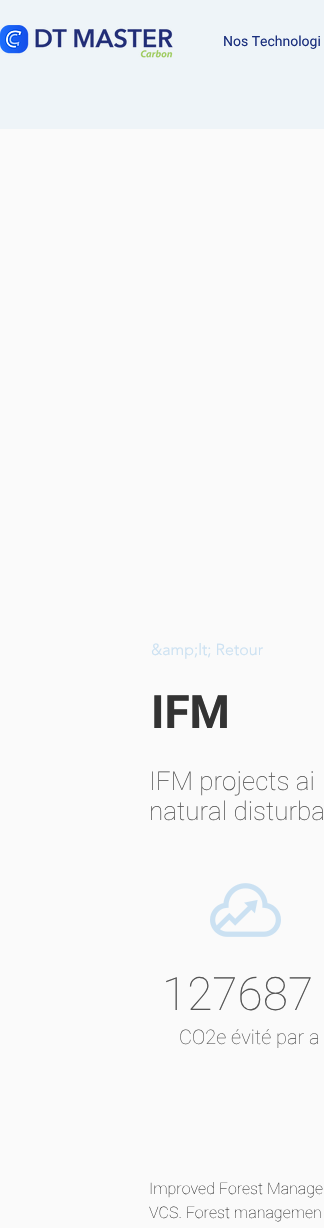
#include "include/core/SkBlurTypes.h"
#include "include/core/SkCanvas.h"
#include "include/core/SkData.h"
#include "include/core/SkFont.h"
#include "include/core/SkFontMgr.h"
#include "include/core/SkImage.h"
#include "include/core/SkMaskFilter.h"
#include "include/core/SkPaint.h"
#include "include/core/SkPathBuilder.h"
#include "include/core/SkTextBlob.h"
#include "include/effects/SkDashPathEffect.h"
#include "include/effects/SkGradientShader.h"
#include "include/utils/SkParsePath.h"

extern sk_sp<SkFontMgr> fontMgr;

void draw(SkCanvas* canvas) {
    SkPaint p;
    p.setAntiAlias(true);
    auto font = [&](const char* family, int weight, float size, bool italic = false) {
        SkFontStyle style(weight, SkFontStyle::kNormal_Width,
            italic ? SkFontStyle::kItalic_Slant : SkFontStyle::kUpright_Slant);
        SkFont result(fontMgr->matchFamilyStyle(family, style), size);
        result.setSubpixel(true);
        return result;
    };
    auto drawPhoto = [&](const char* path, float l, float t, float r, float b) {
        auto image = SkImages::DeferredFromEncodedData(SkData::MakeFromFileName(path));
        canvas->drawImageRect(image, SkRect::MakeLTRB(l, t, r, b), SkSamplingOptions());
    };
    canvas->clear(0xFFFAFAFA);
    p.setColor(0xFFEEF4F8);
    canvas->drawRect(SkRect::MakeLTRB(0, 0, 324, 129), p);
    drawPhoto("media/1.png", 0, 25, 173, 58);
    auto font1 = font("Roboto", 400, 14);
    p.setColor(0xFF192E7D);
    canvas->drawString("Nos Technologi", 223, 46, font1, p);
    auto font2 = font("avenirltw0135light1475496", 300, 16);
    p.setColor(0xFFCBE1F2);
    canvas->drawString("&amp;lt; Retour", 151, 655, font2, p);
    auto font3 = font("Roboto", 700, 46);
    p.setColor(0xFF333333);
    canvas->drawString("IFM", 151, 728, font3, p);
    auto font4 = font("Roboto", 100, 26);
    p.setColor(0xFF555555);
    canvas->drawString("IFM projects ai", 149, 790, font4, p);
    canvas->drawString("natural disturba", 149, 820, font4, p);
    drawPhoto("media/2.png", 210, 883, 281, 937);
    auto font5 = font("Roboto", 100, 46);
    canvas->drawString("127687", 162, 1010, font5, p);
    auto font6 = font("Roboto", 100, 20);
    canvas->drawString("CO2e évité par a", 179, 1044, font6, p);
    auto font7 = font("Roboto", 100, 16);
    p.setColor(0xFF333333);
    canvas->drawString("Improved Forest Manage", 149, 1194, font7, p);
    canvas->drawString("VCS. Forest managemen", 149, 1218, font7, p);
}
